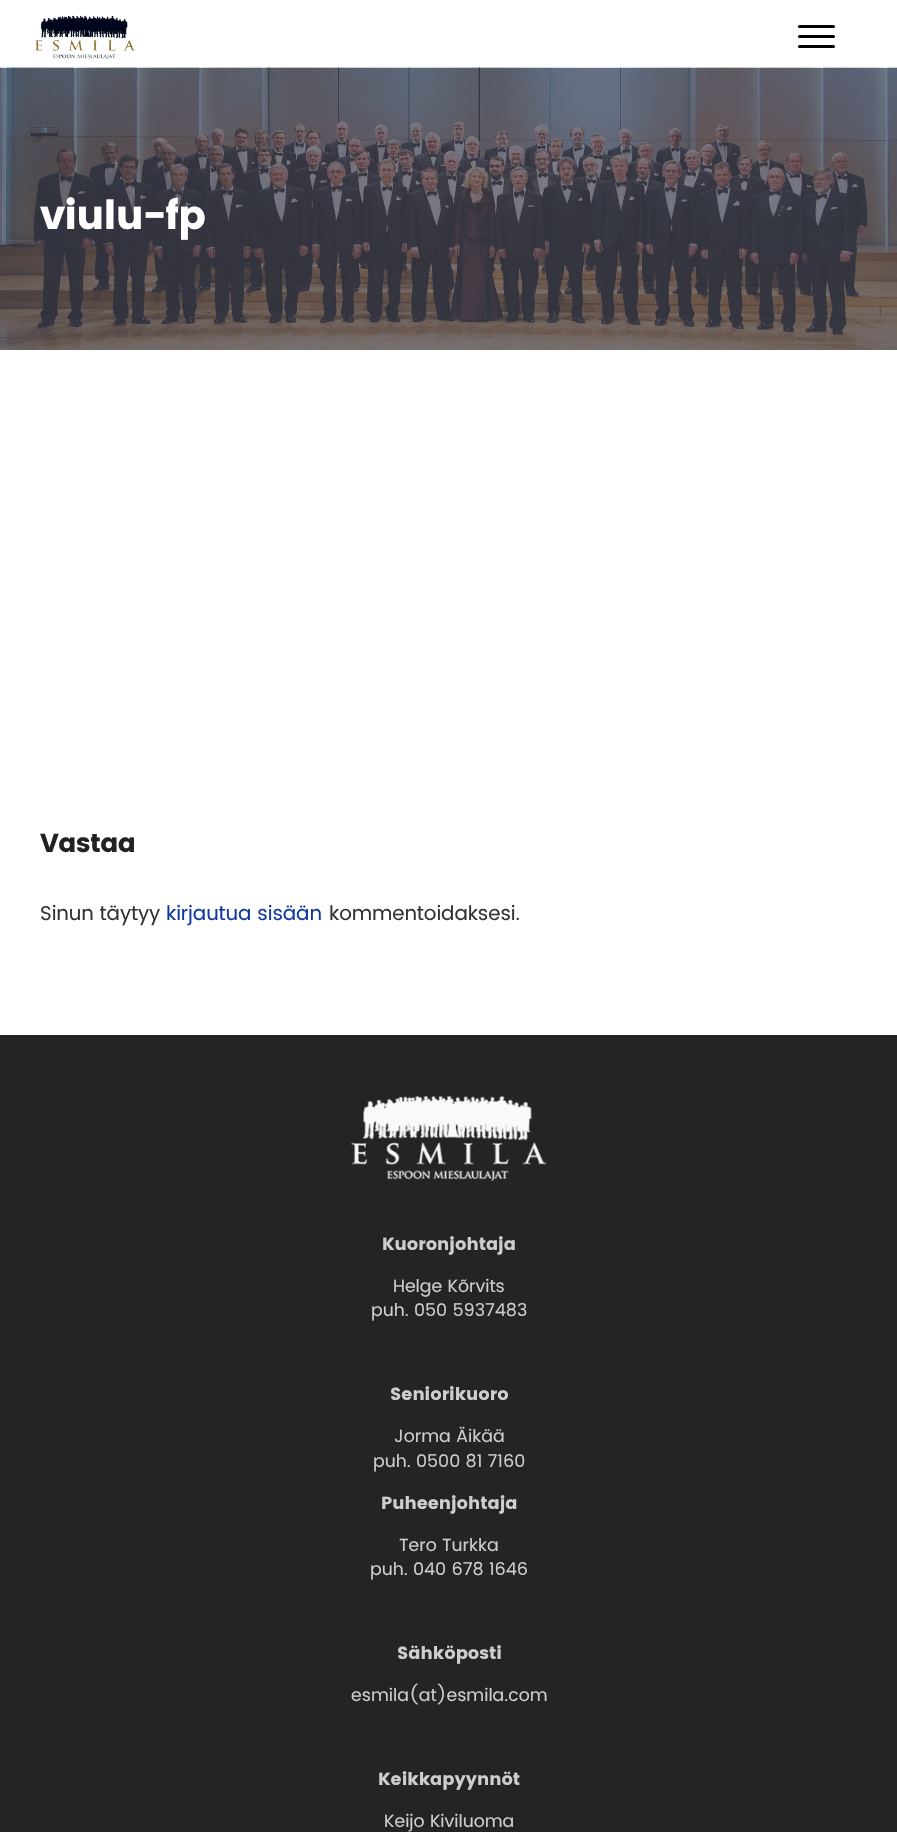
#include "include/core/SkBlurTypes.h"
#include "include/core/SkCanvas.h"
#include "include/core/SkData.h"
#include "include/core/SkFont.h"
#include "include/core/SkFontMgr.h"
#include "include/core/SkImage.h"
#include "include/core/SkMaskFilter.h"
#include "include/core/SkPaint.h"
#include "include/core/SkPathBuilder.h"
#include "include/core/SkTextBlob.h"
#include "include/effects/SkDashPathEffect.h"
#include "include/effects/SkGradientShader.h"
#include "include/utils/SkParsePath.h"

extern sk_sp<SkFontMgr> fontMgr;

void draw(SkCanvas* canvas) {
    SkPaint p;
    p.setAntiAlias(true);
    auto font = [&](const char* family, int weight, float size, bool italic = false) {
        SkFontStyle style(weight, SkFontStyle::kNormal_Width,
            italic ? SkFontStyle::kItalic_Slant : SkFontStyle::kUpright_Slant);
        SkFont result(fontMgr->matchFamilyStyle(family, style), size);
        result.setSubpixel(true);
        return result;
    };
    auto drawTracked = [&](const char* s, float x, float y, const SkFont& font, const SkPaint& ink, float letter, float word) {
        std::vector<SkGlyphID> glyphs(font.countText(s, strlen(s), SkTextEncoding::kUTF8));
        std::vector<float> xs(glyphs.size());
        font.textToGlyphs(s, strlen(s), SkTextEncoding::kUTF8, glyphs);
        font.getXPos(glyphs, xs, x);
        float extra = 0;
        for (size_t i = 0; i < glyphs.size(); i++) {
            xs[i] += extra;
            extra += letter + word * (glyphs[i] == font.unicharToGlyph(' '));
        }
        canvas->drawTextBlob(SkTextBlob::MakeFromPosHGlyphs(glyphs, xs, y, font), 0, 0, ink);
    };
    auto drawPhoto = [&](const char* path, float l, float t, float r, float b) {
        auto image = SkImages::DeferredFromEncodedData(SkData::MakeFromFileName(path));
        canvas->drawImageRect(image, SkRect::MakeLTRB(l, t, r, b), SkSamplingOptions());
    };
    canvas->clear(0xFFFFFFFF);
    drawPhoto("media/1.png", 34, 15, 135, 60);
    p.setColor(0xFF000000);
    canvas->drawRoundRect(SkRect::MakeLTRB(798, 35, 835, 38), 1.5f, 1.5f, p);
    canvas->drawRoundRect(SkRect::MakeLTRB(798, 25, 835, 28), 1.5f, 1.5f, p);
    canvas->drawRoundRect(SkRect::MakeLTRB(798, 45, 835, 48), 1.5f, 1.5f, p);
    drawPhoto("media/2.png", 0, 67, 897, 350);
    auto font1 = font("Poppins", 700, 40);
    p.setColor(0xFFFFFFFF);
    drawTracked("viulu-fp", 40, 229, font1, p, -0.75f, 0);
    auto font2 = font("Poppins", 700, 26);
    p.setColor(0xFF222222);
    drawTracked("Vastaa", 40, 852, font2, p, -0.5f, 0);
    auto font3 = font("Poppins", 400, 20);
    p.setColor(0xFF333333);
    drawTracked("Sinun täytyy", 40, 920, font3, p, -0.1f, 0);
    p.setColor(0xFF0F38A1);
    drawTracked("kirjautua sisään", 166, 920, font3, p, -0.1f, 0);
    p.setColor(0xFF333333);
    drawTracked("kommentoidaksesi.", 329, 920, font3, p, -0.1f, 0);
    p.setColor(0xFF242424);
    canvas->drawRect(SkRect::MakeLTRB(0, 1035, 897, 1832), p);
    drawPhoto("media/3.png", 351, 1096, 546, 1181);
    auto font4 = font("Poppins", 700, 17.5f);
    p.setColor(0xFFCECECE);
    canvas->drawString("Kuoronjohtaja", 382, 1250, font4, p);
    auto font5 = font("Poppins", 400, 17.5f);
    canvas->drawString("Helge Kõrvits", 393, 1292, font5, p);
    canvas->drawString("puh. 050 5937483", 371, 1316, font5, p);
    canvas->drawString("Seniorikuoro", 390, 1400, font4, p);
    canvas->drawString("Jorma Äikää", 394, 1442, font5, p);
    canvas->drawString("puh. 0500 81 7160", 373, 1467, font5, p);
    canvas->drawString("Puheenjohtaja", 381, 1509, font4, p);
    canvas->drawString("Tero Turkka", 399, 1551, font5, p);
    canvas->drawString("puh. 040 678 1646", 370, 1575, font5, p);
    canvas->drawString("Sähköposti", 397, 1659, font4, p);
    canvas->drawString("esmila(at)esmila.com", 351, 1701, font5, p);
    canvas->drawString("Keikkapyynnöt", 378, 1785, font4, p);
    canvas->drawString("Keijo Kiviluoma", 384, 1827, font5, p);
}
